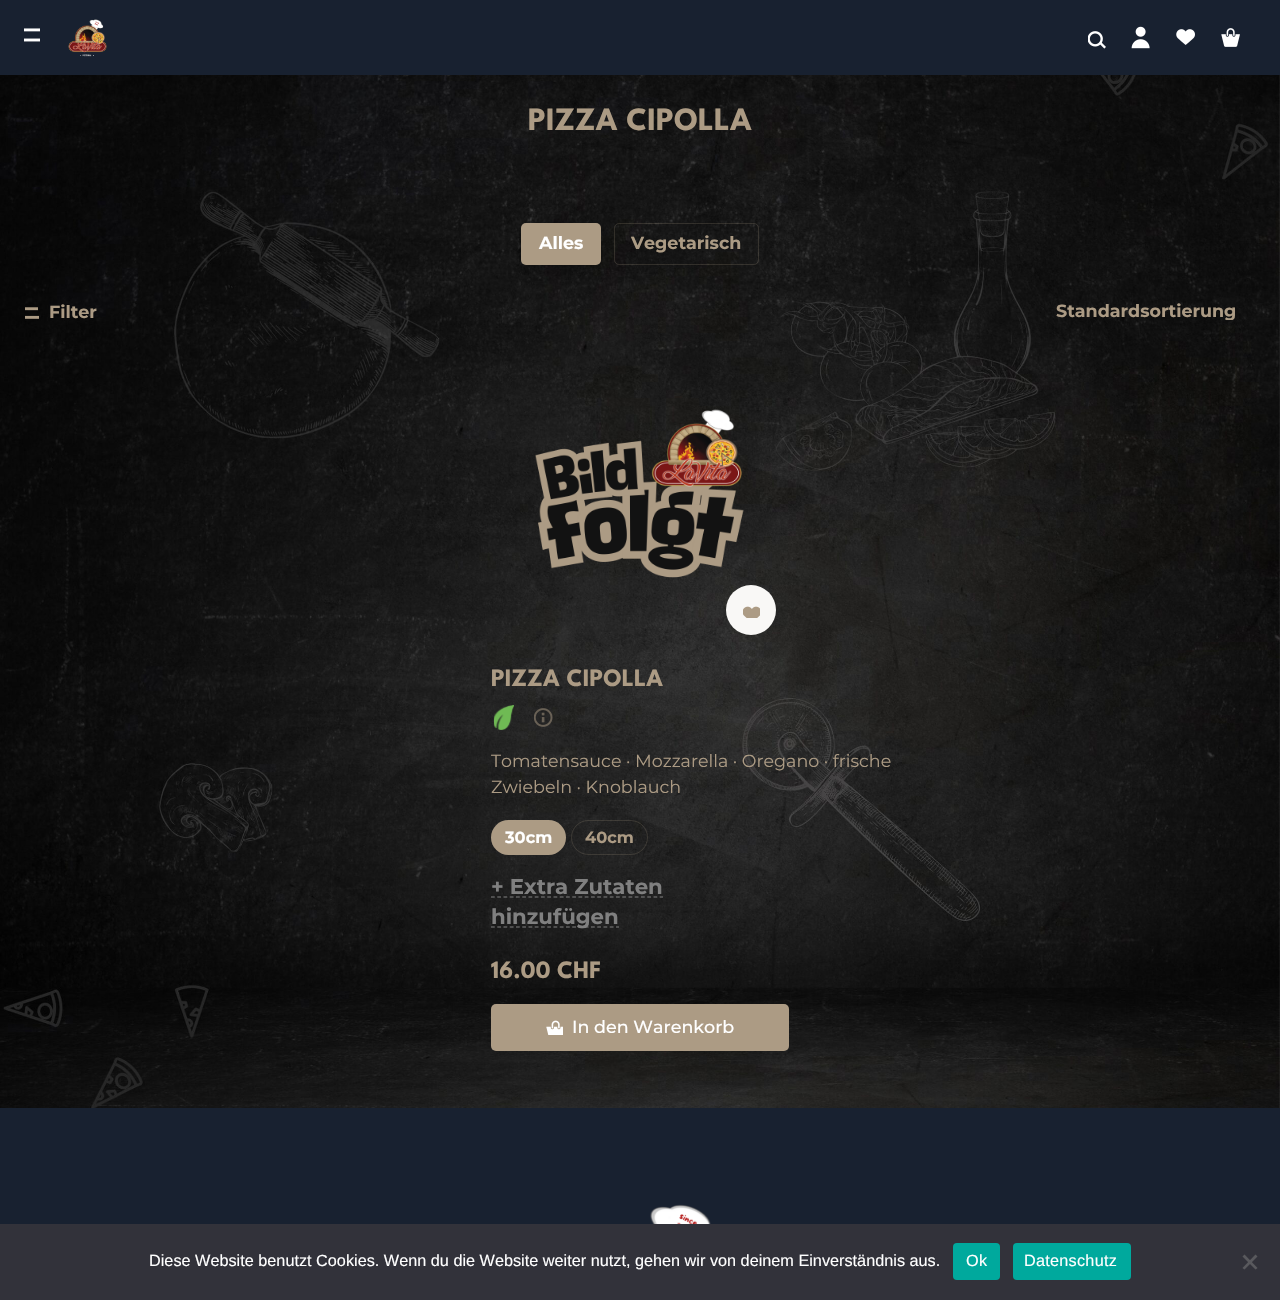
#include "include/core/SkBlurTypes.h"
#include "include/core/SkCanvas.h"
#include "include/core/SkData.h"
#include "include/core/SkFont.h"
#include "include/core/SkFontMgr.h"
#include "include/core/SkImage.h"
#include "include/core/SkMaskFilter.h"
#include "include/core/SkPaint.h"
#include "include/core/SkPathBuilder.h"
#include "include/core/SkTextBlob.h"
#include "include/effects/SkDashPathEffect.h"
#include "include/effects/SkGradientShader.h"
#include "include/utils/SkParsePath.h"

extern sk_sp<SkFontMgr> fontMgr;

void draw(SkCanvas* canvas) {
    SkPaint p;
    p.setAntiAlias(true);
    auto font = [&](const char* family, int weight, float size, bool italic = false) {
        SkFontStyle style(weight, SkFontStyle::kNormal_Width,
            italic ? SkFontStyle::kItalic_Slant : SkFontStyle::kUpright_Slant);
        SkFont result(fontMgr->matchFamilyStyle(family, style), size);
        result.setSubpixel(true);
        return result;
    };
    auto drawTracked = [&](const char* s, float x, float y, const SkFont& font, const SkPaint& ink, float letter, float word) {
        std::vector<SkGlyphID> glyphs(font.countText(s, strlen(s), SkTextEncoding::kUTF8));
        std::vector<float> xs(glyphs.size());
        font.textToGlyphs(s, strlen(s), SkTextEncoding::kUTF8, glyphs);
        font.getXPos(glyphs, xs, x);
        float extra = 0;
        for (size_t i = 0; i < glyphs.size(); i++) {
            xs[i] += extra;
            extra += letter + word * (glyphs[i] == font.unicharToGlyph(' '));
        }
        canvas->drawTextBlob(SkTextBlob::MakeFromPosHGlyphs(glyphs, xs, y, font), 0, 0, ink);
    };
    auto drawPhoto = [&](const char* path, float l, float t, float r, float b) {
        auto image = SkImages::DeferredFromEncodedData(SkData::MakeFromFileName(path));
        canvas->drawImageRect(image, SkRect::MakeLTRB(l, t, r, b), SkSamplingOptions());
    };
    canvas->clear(0xFFFFFFFF);
    drawPhoto("media/1.png", 0, 75, 1280, 1108);
    p.setColor(0xFF182130);
    canvas->drawRect(SkRect::MakeLTRB(0, 0, 1280, 75), p);
    drawPhoto("media/2.png", 24, 28, 40, 42);
    drawPhoto("media/3.png", 68, 19, 107, 57);
    drawPhoto("media/4.png", 1088, 31, 1106, 49);
    drawPhoto("media/5.png", 1131, 26, 1150, 49);
    drawPhoto("media/6.png", 1176, 29, 1195, 45);
    drawPhoto("media/7.png", 1221, 28, 1240, 47);
    auto font1 = font("League Spartan", 700, 32.5f);
    p.setColor(0xFFAC9B84);
    canvas->drawString("PIZZA CIPOLLA", 528, 130, font1, p);
    canvas->drawRoundRect(SkRect::MakeLTRB(521, 223, 601, 265), 5, 5, p);
    auto font2 = font("Montserrat", 700, 17.5f);
    p.setColor(0xFFFFFFFF);
    canvas->drawString("Alles", 539, 249, font2, p);
    p.setStyle(SkPaint::kStroke_Style);
    p.setStrokeWidth(1);
    p.setColor(0x33AC9B84);
    canvas->drawRoundRect(SkRect::MakeLTRB(614.5f, 223.5f, 758.5f, 264.5f), 4.5f, 4.5f, p);
    p.setStyle(SkPaint::kFill_Style);
    p.setColor(0xFFAC9B84);
    canvas->drawString("Vegetarisch", 631, 249, font2, p);
    drawPhoto("media/8.png", 25, 307, 39, 319);
    canvas->drawString("Filter", 49, 318, font2, p);
    canvas->save();
    canvas->clipRect(SkRect::MakeLTRB(840, 303, 1255, 320));
    canvas->drawString("Standardsortierung", 1056, 317, font2, p);
    canvas->restore();
    drawPhoto("media/9.png", 535, 409, 744, 578);
    p.setColor(0xFFFFFFFF);
    canvas->drawCircle(751, 610, 25, p);
    p.setColor(0x12AC9B84);
    canvas->drawCircle(751, 610, 25, p);
    drawPhoto("media/10.png", 743, 606, 760, 618);
    auto font3 = font("League Spartan", 700, 25);
    p.setColor(0xFFAC9B84);
    canvas->drawString("PIZZA CIPOLLA", 491, 686, font3, p);
    drawPhoto("media/11.png", 493, 705, 514, 730);
    drawPhoto("media/12.png", 534, 708, 553, 727);
    auto font4 = font("Montserrat", 400, 17.5f);
    canvas->drawString("Tomatensauce · Mozzarella · Oregano · frische", 491, 767, font4, p);
    canvas->drawString("Zwiebeln · Knoblauch", 491, 793, font4, p);
    canvas->drawRoundRect(SkRect::MakeLTRB(491, 820, 566, 855), 17.5f, 17.5f, p);
    auto font5 = font("Montserrat", 700, 16.25f);
    p.setColor(0xFFFFFFFF);
    canvas->drawString("30cm", 505, 843, font5, p);
    p.setStyle(SkPaint::kStroke_Style);
    p.setColor(0x33AC9B84);
    canvas->drawRoundRect(SkRect::MakeLTRB(571.5f, 820.5f, 647.5f, 854.5f), 17, 17, p);
    p.setStyle(SkPaint::kFill_Style);
    p.setColor(0xFFAC9B84);
    canvas->drawString("40cm", 585, 843, font5, p);
    auto font6 = font("Montserrat", 700, 21.25f);
    p.setColor(0xFF808080);
    canvas->drawString("+ Extra Zutaten", 491, 894, font6, p);
    p.setStyle(SkPaint::kStroke_Style);
    p.setStrokeWidth(1.2f);
    p.setPathEffect(SkDashPathEffect::Make({{3.75f, 2.5f}}, 0));
    canvas->drawPath(SkPathBuilder().moveTo(491, 897).lineTo(663, 897).detach(), p);
    p.setPathEffect(nullptr);
    p.setPathEffect(SkDashPathEffect::Make({{3.75f, 2.5f}}, 0));
    canvas->drawPath(SkPathBuilder().moveTo(491, 927).lineTo(619, 927).detach(), p);
    p.setPathEffect(nullptr);
    p.setStyle(SkPaint::kFill_Style);
    canvas->drawString("hinzufügen", 491, 924, font6, p);
    p.setColor(0xFFAC9B84);
    canvas->drawString("16.00 CHF", 491, 978, font3, p);
    canvas->drawRoundRect(SkRect::MakeLTRB(491, 1004, 789, 1051), 5, 5, p);
    drawPhoto("media/13.png", 546, 1020, 563, 1035);
    auto font7 = font("Montserrat", 500, 17.5f);
    p.setColor(0xFFFFFFFF);
    canvas->drawString("In den Warenkorb", 572, 1033, font7, p);
    p.setColor(0xFF182130);
    canvas->drawRect(SkRect::MakeLTRB(0, 1108, 1280, 1224), p);
    drawPhoto("media/14.png", 650, 1204, 711, 1224);
    p.setColor(0xFF32323A);
    canvas->drawRect(SkRect::MakeLTRB(0, 1224, 1280, 1300), p);
    auto font8 = font("Liberation Sans", 400, 16.25f);
    p.setColor(0xFFFFFFFF);
    canvas->drawString("Diese Website benutzt Cookies. Wenn du die Website weiter nutzt, gehen wir von deinem Einverständnis aus.", 149, 1266, font8, p);
    p.setColor(0xFF00A99D);
    canvas->drawRoundRect(SkRect::MakeLTRB(953, 1243, 1000, 1280), 4, 4, p);
    p.setColor(0xFFFFFFFF);
    drawTracked("Ok", 966, 1266, font8, p, 0.25f, 0);
    p.setColor(0xFF00A99D);
    canvas->drawRoundRect(SkRect::MakeLTRB(1013, 1243, 1131, 1280), 4, 4, p);
    p.setColor(0xFFFFFFFF);
    drawTracked("Datenschutz", 1024, 1266, font8, p, 0.25f, 0);
    p.setColor(0xFF59595D);
    canvas->drawPath(SkPathBuilder().moveTo(1255.5f, 1254.5f).lineTo(1257.5f, 1256.5f).lineTo(1244.5f, 1269.5f).lineTo(1242.5f, 1268).close().detach(), p);
    canvas->drawPath(SkPathBuilder().moveTo(1242.5f, 1256.5f).lineTo(1244.5f, 1254.5f).lineTo(1257.5f, 1268).lineTo(1255.5f, 1269.5f).close().detach(), p);
}
